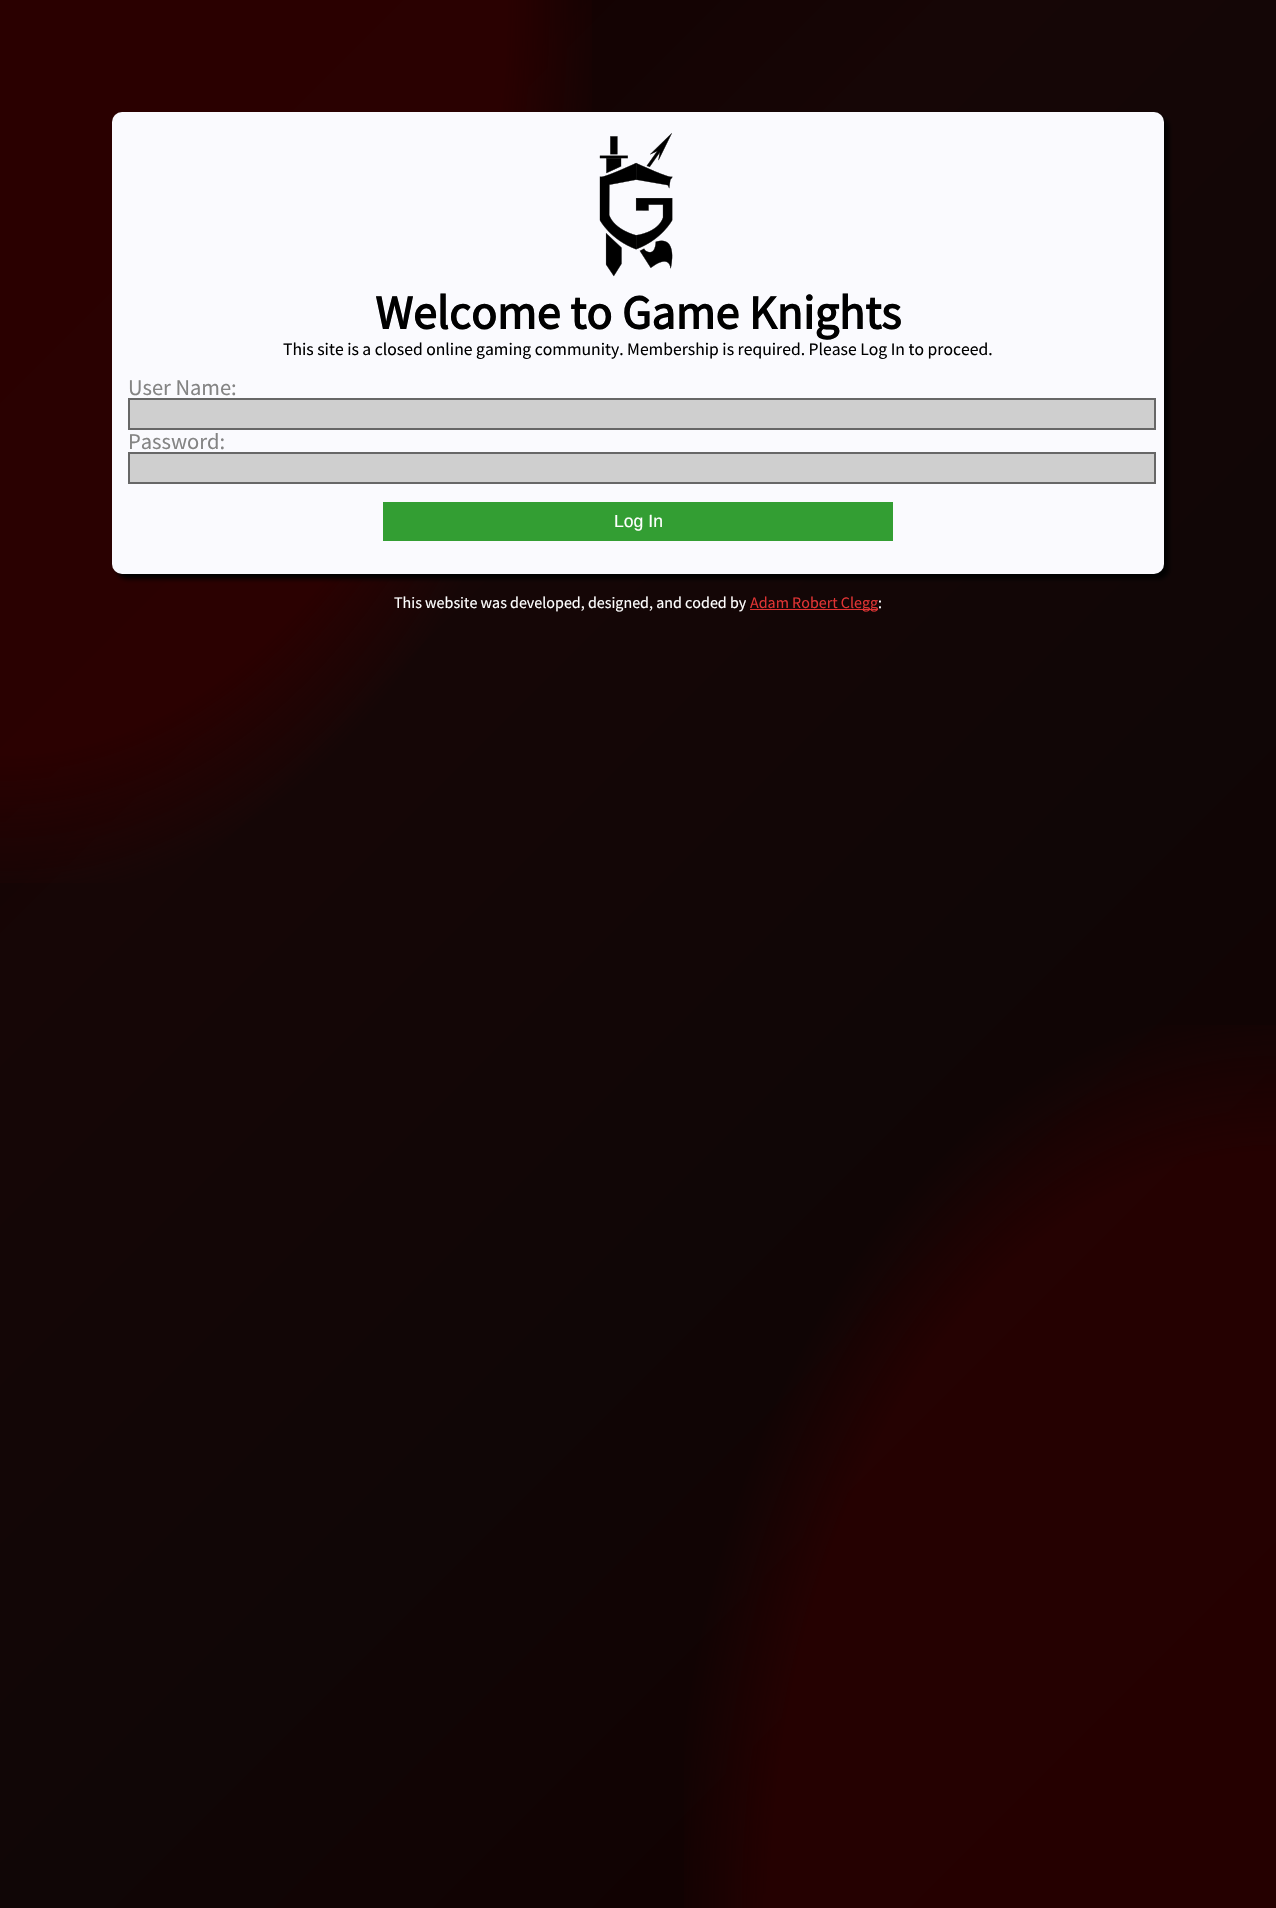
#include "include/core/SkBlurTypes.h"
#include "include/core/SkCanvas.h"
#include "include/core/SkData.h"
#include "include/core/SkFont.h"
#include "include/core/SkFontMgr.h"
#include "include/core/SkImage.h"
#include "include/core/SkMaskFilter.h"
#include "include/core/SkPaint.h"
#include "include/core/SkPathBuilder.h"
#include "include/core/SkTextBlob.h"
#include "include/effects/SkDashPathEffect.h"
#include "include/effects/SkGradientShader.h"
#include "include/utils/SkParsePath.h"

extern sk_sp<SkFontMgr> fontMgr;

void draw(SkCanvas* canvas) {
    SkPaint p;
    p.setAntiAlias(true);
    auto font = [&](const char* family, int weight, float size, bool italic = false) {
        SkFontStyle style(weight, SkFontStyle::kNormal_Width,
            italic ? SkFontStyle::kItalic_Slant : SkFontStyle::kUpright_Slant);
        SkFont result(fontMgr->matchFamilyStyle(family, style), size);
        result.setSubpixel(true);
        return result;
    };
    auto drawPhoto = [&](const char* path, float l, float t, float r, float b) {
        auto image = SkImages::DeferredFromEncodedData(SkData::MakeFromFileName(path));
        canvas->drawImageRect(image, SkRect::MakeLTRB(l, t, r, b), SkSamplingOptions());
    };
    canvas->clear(0xFFFFFFFF);
    {
        const SkColor colors[] = {0xFF120000, 0xFF100606, 0xFF160606, 0xFF120000};
        const float stops[] = {0.09f, 0.39f, 0.69f, 0.89f};
        const SkPoint ends[] = {{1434, 1750}, {-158, 158}};
        p.setShader(SkGradientShader::MakeLinear(ends, colors, stops, 4, SkTileMode::kClamp));
        p.setAlpha(255);
    }
    canvas->drawRect(SkRect::MakeLTRB(0, 0, 1276, 1908), p);
    {
        const SkColor colors[] = {0xB32C0000, 0xB32C0000, 0x002C0000};
        const float stops[] = {0.25f, 0.56f, 0.67f};
        SkMatrix m = SkMatrix::Translate(1276, 1908).preScale(902, 1349);
        p.setShader(SkGradientShader::MakeRadial({0, 0}, 1, colors, stops, 3, SkTileMode::kClamp, 0, &m));
        p.setAlpha(255);
    }
    canvas->drawRect(SkRect::MakeLTRB(684, 1025, 1276, 1908), p);
    {
        const SkColor colors[] = {0xE62C0000, 0xE62C0000, 0x002C0000};
        const float stops[] = {0.25f, 0.56f, 0.67f};
        SkMatrix m = SkMatrix::Translate(0, 0).preScale(902, 1349);
        p.setShader(SkGradientShader::MakeRadial({0, 0}, 1, colors, stops, 3, SkTileMode::kClamp, 0, &m));
        p.setAlpha(255);
    }
    canvas->drawRect(SkRect::MakeLTRB(0, 0, 592, 883), p);
    p.setShader(nullptr);
    p.setColor(0xFF000000);
    p.setMaskFilter(SkMaskFilter::MakeBlur(kNormal_SkBlurStyle, 2.5f));
    canvas->drawRoundRect(SkRect::MakeLTRB(117, 117, 1169, 579), 10, 10, p);
    p.setMaskFilter(nullptr);
    p.setColor(0xFFFAFAFE);
    canvas->drawRoundRect(SkRect::MakeLTRB(112, 112, 1164, 574), 10, 10, p);
    drawPhoto("media/1.png", 599, 133, 673, 277);
    auto font1 = font("Source Sans Pro", 700, 48);
    p.setColor(0xFF000000);
    canvas->drawString("Welcome to Game Knights", 375, 329, font1, p);
    auto font2 = font("Source Sans Pro", 400, 17.6f);
    canvas->drawString("This site is a closed online gaming community. Membership is required. Please Log In to proceed.", 283, 355, font2, p);
    auto font3 = font("Source Sans Pro", 400, 22.5f);
    p.setColor(0xFF848484);
    canvas->drawString("User Name:", 128, 395, font3, p);
    p.setColor(0xFFCFCFCF);
    canvas->drawRect(SkRect::MakeLTRB(129, 399, 1155, 429), p);
    p.setStyle(SkPaint::kStroke_Style);
    p.setStrokeWidth(2);
    p.setColor(0xFF676767);
    canvas->drawRect(SkRect::MakeLTRB(129, 399, 1155, 429), p);
    p.setStyle(SkPaint::kFill_Style);
    p.setColor(0xFF848484);
    canvas->drawString("Password:", 128, 449, font3, p);
    p.setColor(0xFFCFCFCF);
    canvas->drawRect(SkRect::MakeLTRB(129, 453, 1155, 483), p);
    p.setStyle(SkPaint::kStroke_Style);
    p.setColor(0xFF676767);
    canvas->drawRect(SkRect::MakeLTRB(129, 453, 1155, 483), p);
    p.setStyle(SkPaint::kFill_Style);
    p.setColor(0xFF339E33);
    canvas->drawRect(SkRect::MakeLTRB(383, 502, 893, 541), p);
    auto font4 = font("Liberation Sans", 400, 17.6f);
    p.setColor(0xFFFFFFFF);
    canvas->drawString("Log In", 614, 527, font4, p);
    auto font5 = font("Source Sans Pro", 400, 16);
    canvas->drawString("This website was developed, designed, and coded by", 394, 608, font5, p);
    p.setColor(0xFFDF3333);
    canvas->drawRect(SkRect::MakeLTRB(750, 609, 878, 610), p);
    canvas->drawString("Adam Robert Clegg", 750, 608, font5, p);
    p.setColor(0xFFFFFFFF);
    canvas->drawString(":", 878, 608, font5, p);
}
